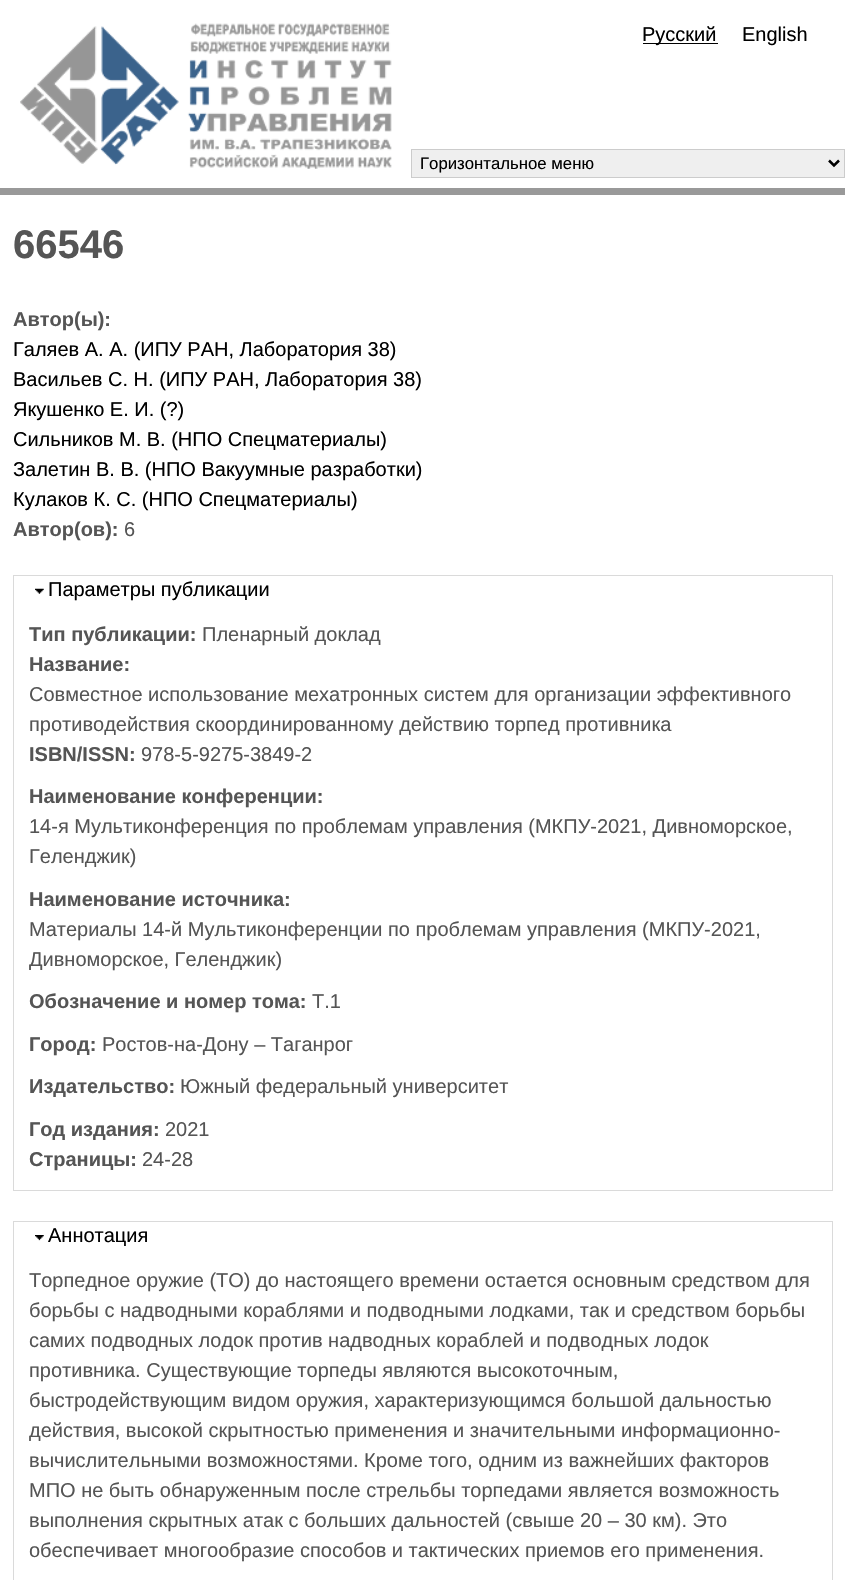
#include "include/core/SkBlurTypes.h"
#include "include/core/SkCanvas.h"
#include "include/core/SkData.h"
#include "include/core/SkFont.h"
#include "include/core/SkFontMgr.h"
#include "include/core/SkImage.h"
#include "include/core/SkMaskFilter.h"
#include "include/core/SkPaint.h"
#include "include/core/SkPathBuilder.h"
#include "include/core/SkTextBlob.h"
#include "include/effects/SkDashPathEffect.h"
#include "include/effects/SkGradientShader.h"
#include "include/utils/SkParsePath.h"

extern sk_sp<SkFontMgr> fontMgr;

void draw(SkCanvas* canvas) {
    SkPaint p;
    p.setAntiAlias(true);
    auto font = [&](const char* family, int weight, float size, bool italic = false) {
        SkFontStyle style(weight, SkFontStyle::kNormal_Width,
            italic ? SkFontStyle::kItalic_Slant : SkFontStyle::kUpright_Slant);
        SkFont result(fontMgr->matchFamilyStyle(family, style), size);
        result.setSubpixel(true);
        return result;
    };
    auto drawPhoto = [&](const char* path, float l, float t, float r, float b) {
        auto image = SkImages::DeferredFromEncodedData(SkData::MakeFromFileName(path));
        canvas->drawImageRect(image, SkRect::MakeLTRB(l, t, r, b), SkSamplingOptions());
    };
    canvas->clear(0xFFFFFFFF);
    drawPhoto("media/1.png", 20, 23, 392, 169);
    p.setColor(0xFF000000);
    canvas->drawRect(SkRect::MakeLTRB(643, 43, 718, 44), p);
    auto font1 = font("Liberation Sans", 400, 20);
    canvas->drawString("Русский", 642, 41, font1, p);
    canvas->drawString("English", 742, 41, font1, p);
    p.setColor(0xFF999999);
    canvas->drawRect(SkRect::MakeLTRB(0, 188, 845, 195), p);
    p.setColor(0xFFEFEFEF);
    canvas->drawRect(SkRect::MakeLTRB(411.5f, 149.5f, 844.5f, 177.5f), p);
    p.setStyle(SkPaint::kStroke_Style);
    p.setStrokeWidth(1);
    p.setColor(0xFFCCCCCC);
    canvas->drawRect(SkRect::MakeLTRB(411.5f, 149.5f, 844.5f, 177.5f), p);
    p.setStrokeWidth(2.5f);
    p.setColor(0xFF000000);
    canvas->drawPath(SkPathBuilder().moveTo(829, 160.5f).lineTo(834, 165.5f).lineTo(839, 160.5f).detach(), p);
    auto font2 = font("Liberation Sans", 400, 16.75f);
    p.setStyle(SkPaint::kFill_Style);
    canvas->drawString("Горизонтальное меню", 420, 169, font2, p);
    auto font3 = font("Liberation Sans", 700, 40);
    p.setColor(0xFF555555);
    canvas->drawString("66546", 13, 258, font3, p);
    auto font4 = font("Liberation Sans", 700, 20);
    canvas->drawString("Автор(ы):", 13, 326, font4, p);
    p.setColor(0xFF000000);
    {
        const struct { const char* s; float x, y; } items[] = {
            {"Галяев А. А. (ИПУ РАН, Лаборатория 38)", 13, 356},
            {"Васильев С. Н. (ИПУ РАН, Лаборатория 38)", 13, 386},
            {"Якушенко Е. И. (?)", 13, 416},
            {"Сильников М. В. (НПО Спецматериалы)", 13, 446},
            {"Залетин В. В. (НПО Вакуумные разработки)", 13, 476},
            {"Кулаков К. С. (НПО Спецматериалы)", 13, 506},
        };
        for (auto [s, x, y] : items) {
            canvas->drawString(s, x, y, font1, p);
        }
    }
    p.setColor(0xFF555555);
    canvas->drawString("Автор(ов):", 13, 536, font4, p);
    canvas->drawString("6", 124, 536, font1, p);
    p.setStyle(SkPaint::kStroke_Style);
    p.setStrokeWidth(1);
    p.setColor(0xFFDADADA);
    canvas->drawRect(SkRect::MakeLTRB(13.5f, 575.5f, 832.5f, 1190.5f), p);
    drawPhoto("media/2.png", 35, 588, 44, 594);
    p.setStyle(SkPaint::kFill_Style);
    p.setColor(0xFF000000);
    canvas->drawString("Параметры публикации", 48, 596, font1, p);
    p.setColor(0xFF555555);
    canvas->drawString("Тип публикации:", 29, 641, font4, p);
    canvas->drawString("Пленарный доклад", 202, 641, font1, p);
    canvas->drawString("Название:", 29, 671, font4, p);
    canvas->drawString("Совместное использование мехатронных систем для организации эффективного", 29, 701, font1, p);
    canvas->drawString("противодействия скоординированному действию торпед противника", 29, 731, font1, p);
    canvas->drawString("ISBN/ISSN:", 29, 761, font4, p);
    canvas->drawString("978-5-9275-3849-2", 141, 761, font1, p);
    canvas->drawString("Наименование конференции:", 29, 803, font4, p);
    canvas->drawString("14-я Мультиконференция по проблемам управления (МКПУ-2021, Дивноморское,", 29, 833, font1, p);
    canvas->drawString("Геленджик)", 29, 863, font1, p);
    canvas->drawString("Наименование источника:", 29, 906, font4, p);
    canvas->drawString("Материалы 14-й Мультиконференции по проблемам управления (МКПУ-2021,", 29, 936, font1, p);
    canvas->drawString("Дивноморское, Геленджик)", 29, 966, font1, p);
    canvas->drawString("Обозначение и номер тома:", 29, 1008, font4, p);
    canvas->drawString("Т.1", 312, 1008, font1, p);
    canvas->drawString("Город:", 29, 1051, font4, p);
    canvas->drawString("Ростов-на-Дону – Таганрог", 102, 1051, font1, p);
    canvas->drawString("Издательство:", 29, 1093, font4, p);
    canvas->drawString("Южный федеральный университет", 180, 1093, font1, p);
    canvas->drawString("Год издания:", 29, 1136, font4, p);
    canvas->drawString("2021", 165, 1136, font1, p);
    canvas->drawString("Страницы:", 29, 1166, font4, p);
    canvas->drawString("24-28", 142, 1166, font1, p);
    p.setStyle(SkPaint::kStroke_Style);
    p.setColor(0xFFDADADA);
    canvas->drawRect(SkRect::MakeLTRB(13.5f, 1221.5f, 832.5f, 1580.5f), p);
    drawPhoto("media/3.png", 35, 1235, 44, 1241);
    p.setStyle(SkPaint::kFill_Style);
    p.setColor(0xFF000000);
    canvas->drawString("Аннотация", 48, 1242, font1, p);
    p.setColor(0xFF555555);
    {
        const struct { const char* s; float x, y; } items[] = {
            {"Торпедное оружие (ТО) до настоящего времени остается основным средством для", 29, 1287},
            {"борьбы с надводными кораблями и подводными лодками, так и средством борьбы", 29, 1317},
            {"самих подводных лодок против надводных кораблей и подводных лодок", 29, 1347},
            {"противника. Существующие торпеды являются высокоточным,", 29, 1377},
            {"быстродействующим видом оружия, характеризующимся большой дальностью", 29, 1407},
            {"действия, высокой скрытностью применения и значительными информационно-", 29, 1437},
            {"вычислительными возможностями. Кроме того, одним из важнейших факторов", 29, 1467},
            {"МПО не быть обнаруженным после стрельбы торпедами является возможность", 29, 1497},
            {"выполнения скрытных атак с больших дальностей (свыше 20 – 30 км). Это", 29, 1527},
            {"обеспечивает многообразие способов и тактических приемов его применения.", 29, 1557},
        };
        for (auto [s, x, y] : items) {
            canvas->drawString(s, x, y, font1, p);
        }
    }
}
